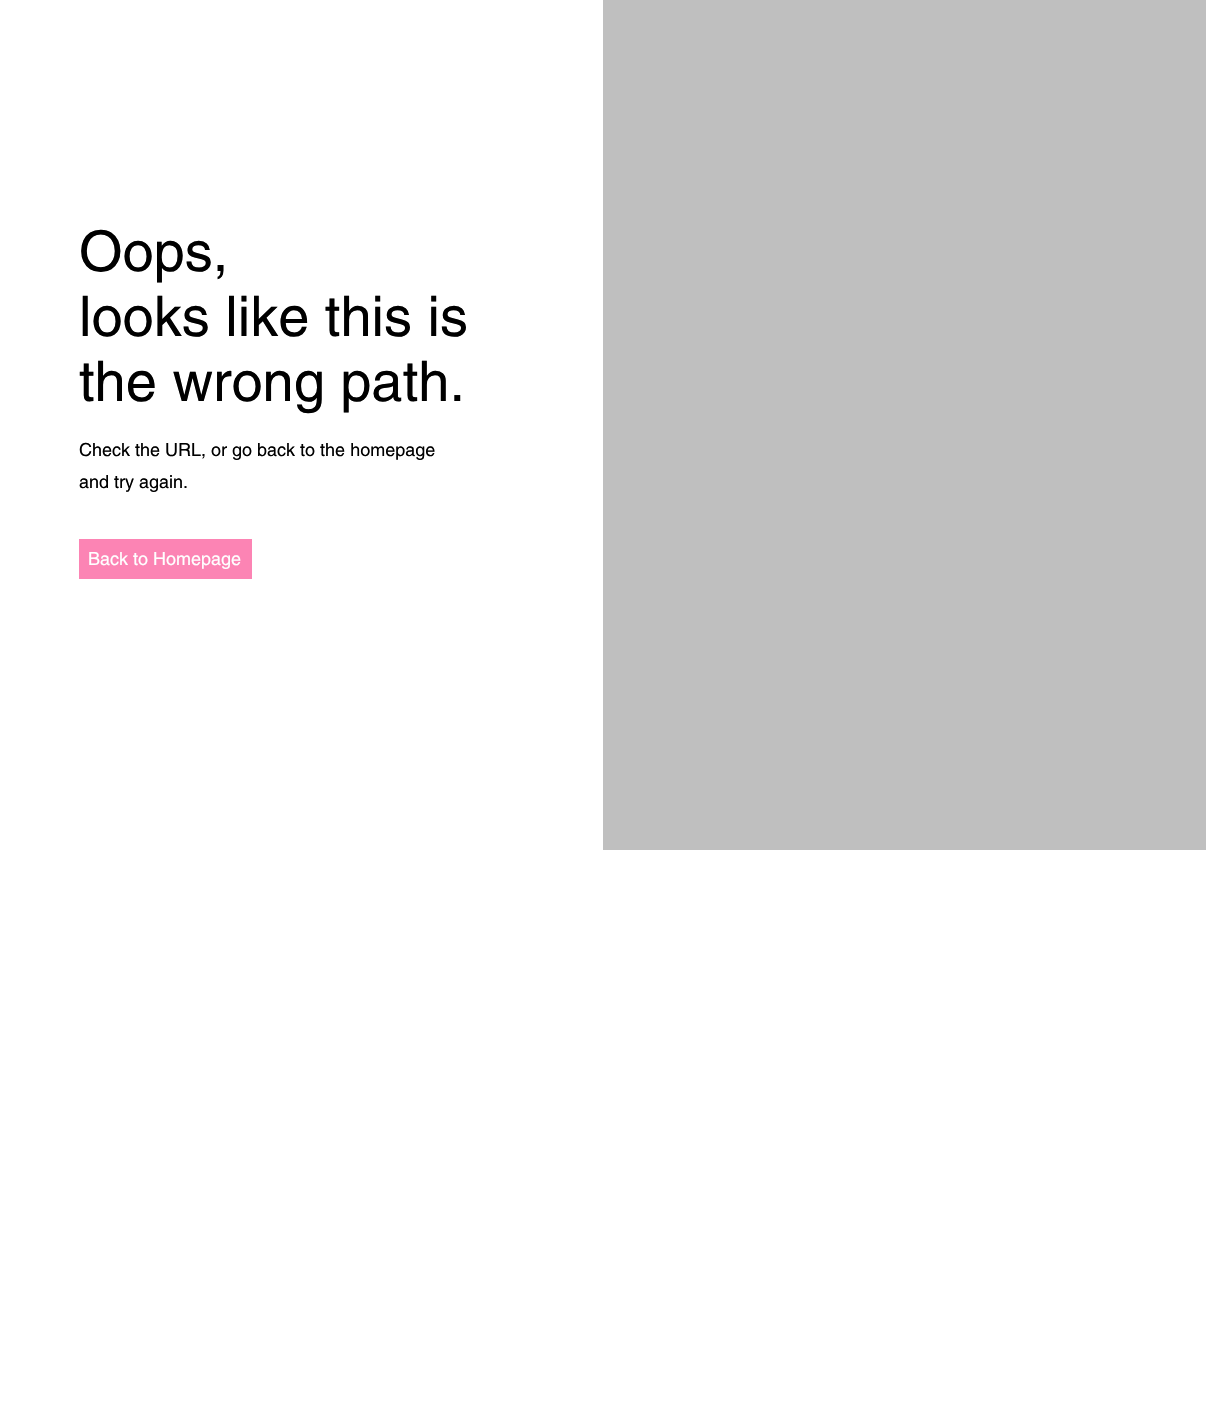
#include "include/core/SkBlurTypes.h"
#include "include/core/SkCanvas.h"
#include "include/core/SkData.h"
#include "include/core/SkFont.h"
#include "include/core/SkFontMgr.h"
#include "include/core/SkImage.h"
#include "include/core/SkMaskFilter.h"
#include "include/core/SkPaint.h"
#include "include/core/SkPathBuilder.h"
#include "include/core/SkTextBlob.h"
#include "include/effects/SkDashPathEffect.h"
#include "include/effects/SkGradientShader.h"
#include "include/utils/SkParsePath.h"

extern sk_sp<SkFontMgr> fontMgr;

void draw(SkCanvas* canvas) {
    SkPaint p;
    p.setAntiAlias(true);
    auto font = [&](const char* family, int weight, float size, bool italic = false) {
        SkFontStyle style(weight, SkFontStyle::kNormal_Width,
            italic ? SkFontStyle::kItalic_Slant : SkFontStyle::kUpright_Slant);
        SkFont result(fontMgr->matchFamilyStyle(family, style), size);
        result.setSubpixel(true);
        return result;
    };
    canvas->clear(0xFFFFFFFF);
    auto font1 = font("helvetica", 400, 56);
    p.setColor(0xFF000000);
    {
        const struct { const char* s; float x, y; } items[] = {
            {"Oops,", 79, 271},
            {"looks like this is", 79, 336},
            {"the wrong path.", 79, 401},
        };
        for (auto [s, x, y] : items) {
            canvas->drawString(s, x, y, font1, p);
        }
    }
    auto font2 = font("helvetica", 400, 18);
    canvas->drawString("Check the URL, or go back to the homepage", 79, 456, font2, p);
    canvas->drawString("and try again.", 79, 488, font2, p);
    p.setColor(0xFFFC84B4);
    canvas->drawRect(SkRect::MakeLTRB(79, 539, 252, 579), p);
    p.setColor(0xFFFFFFFF);
    canvas->drawString("Back to Homepage", 88, 565, font2, p);
    p.setColor(0xFFBFBFBF);
    canvas->drawRect(SkRect::MakeLTRB(603, 0, 1206, 850), p);
}
